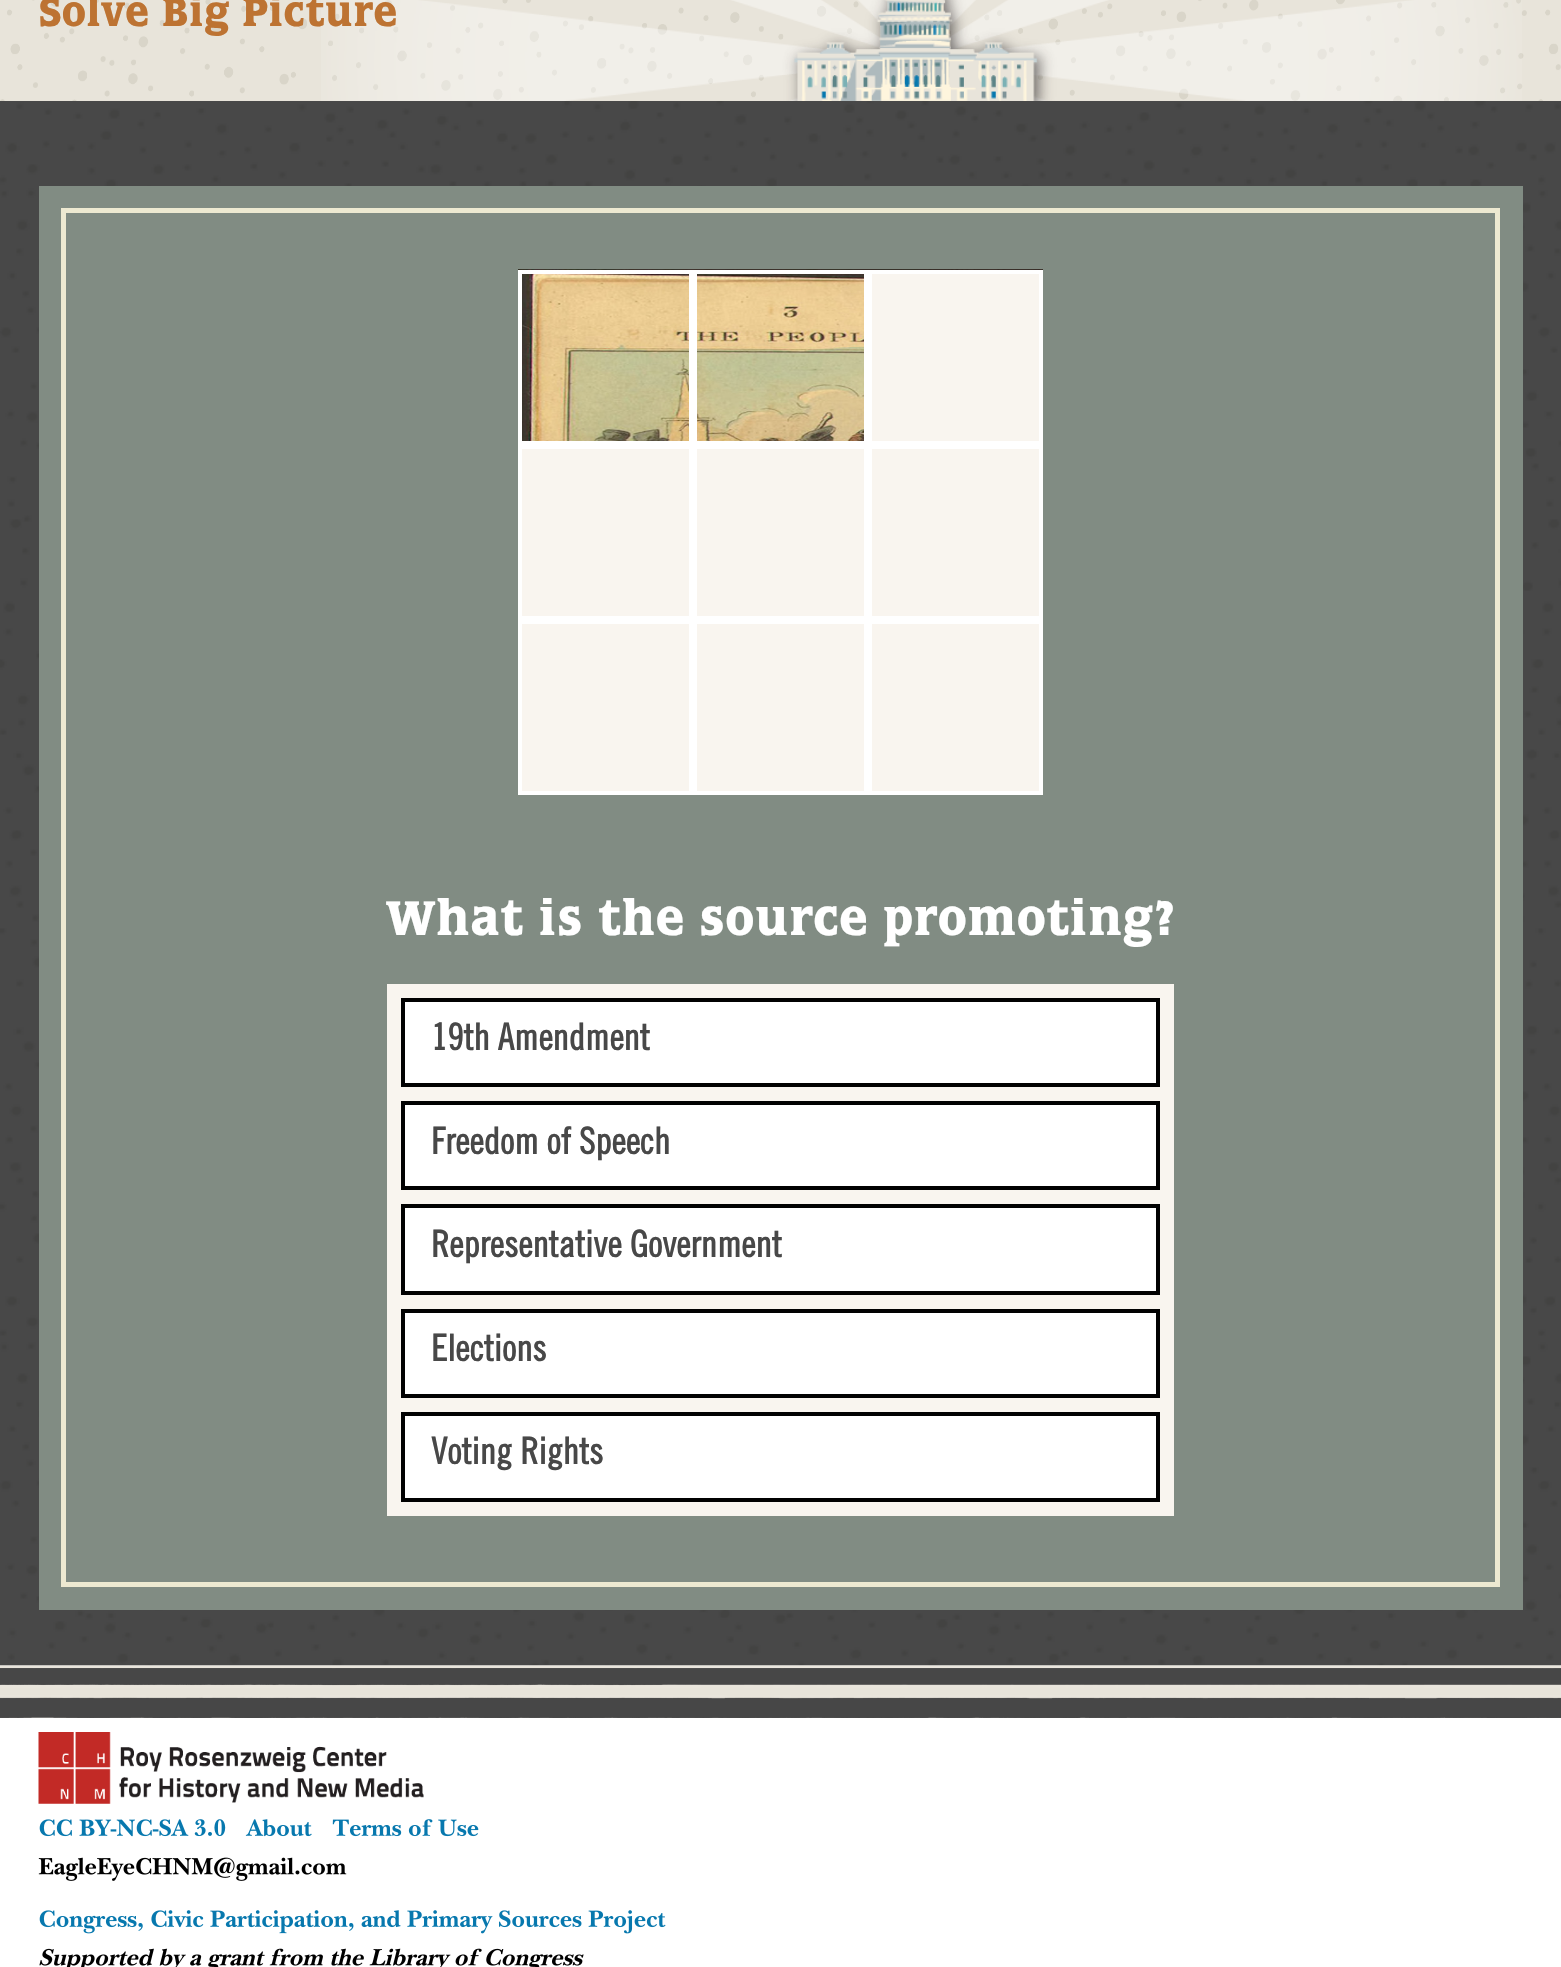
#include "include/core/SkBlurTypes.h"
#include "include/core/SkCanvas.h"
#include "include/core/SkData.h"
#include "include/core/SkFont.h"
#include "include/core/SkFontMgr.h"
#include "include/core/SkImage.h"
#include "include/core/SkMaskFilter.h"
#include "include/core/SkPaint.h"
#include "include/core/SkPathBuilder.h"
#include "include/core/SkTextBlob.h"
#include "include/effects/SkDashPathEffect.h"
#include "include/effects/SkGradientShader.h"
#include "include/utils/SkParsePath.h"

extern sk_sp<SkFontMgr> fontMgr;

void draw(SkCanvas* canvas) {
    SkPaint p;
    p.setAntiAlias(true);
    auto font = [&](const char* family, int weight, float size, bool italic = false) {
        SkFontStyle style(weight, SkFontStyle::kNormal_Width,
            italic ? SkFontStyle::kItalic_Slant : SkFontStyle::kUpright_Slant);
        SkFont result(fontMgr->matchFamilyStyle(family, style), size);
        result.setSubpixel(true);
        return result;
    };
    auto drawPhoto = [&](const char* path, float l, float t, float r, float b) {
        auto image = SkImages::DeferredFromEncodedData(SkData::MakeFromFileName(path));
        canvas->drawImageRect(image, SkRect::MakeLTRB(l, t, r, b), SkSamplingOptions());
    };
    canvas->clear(0xFFFFFFFF);
    drawPhoto("media/1.png", 0, 0, 1561, 101);
    drawPhoto("media/2.png", 321, 0, 1522, 101);
    auto font1 = font("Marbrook", 600, 42);
    p.setColor(0xFFBD7332);
    canvas->drawString("Solve Big Picture", 39, 26, font1, p);
    drawPhoto("media/3.png", 0, 101, 1561, 1666);
    p.setColor(0xFF818C83);
    canvas->drawRect(SkRect::MakeLTRB(39, 186, 1523, 1610), p);
    drawPhoto("media/4.png", 518, 269, 1043, 441);
    p.setStyle(SkPaint::kStroke_Style);
    p.setStrokeWidth(4);
    p.setColor(0xFFFFFFFF);
    canvas->drawRect(SkRect::MakeLTRB(520, 272, 691, 443), p);
    canvas->drawRect(SkRect::MakeLTRB(695, 272, 866, 443), p);
    p.setStyle(SkPaint::kFill_Style);
    p.setColor(0xFFF9F5EF);
    canvas->drawRect(SkRect::MakeLTRB(870, 272, 1041, 443), p);
    p.setStyle(SkPaint::kStroke_Style);
    p.setColor(0xFFFFFFFF);
    canvas->drawRect(SkRect::MakeLTRB(870, 272, 1041, 443), p);
    p.setStyle(SkPaint::kFill_Style);
    p.setColor(0xFFF9F5EF);
    canvas->drawRect(SkRect::MakeLTRB(520, 447, 691, 618), p);
    p.setStyle(SkPaint::kStroke_Style);
    p.setColor(0xFFFFFFFF);
    canvas->drawRect(SkRect::MakeLTRB(520, 447, 691, 618), p);
    p.setStyle(SkPaint::kFill_Style);
    p.setColor(0xFFF9F5EF);
    canvas->drawRect(SkRect::MakeLTRB(695, 447, 866, 618), p);
    p.setStyle(SkPaint::kStroke_Style);
    p.setColor(0xFFFFFFFF);
    canvas->drawRect(SkRect::MakeLTRB(695, 447, 866, 618), p);
    p.setStyle(SkPaint::kFill_Style);
    p.setColor(0xFFF9F5EF);
    canvas->drawRect(SkRect::MakeLTRB(870, 447, 1041, 618), p);
    p.setStyle(SkPaint::kStroke_Style);
    p.setColor(0xFFFFFFFF);
    canvas->drawRect(SkRect::MakeLTRB(870, 447, 1041, 618), p);
    p.setStyle(SkPaint::kFill_Style);
    p.setColor(0xFFF9F5EF);
    canvas->drawRect(SkRect::MakeLTRB(520, 622, 691, 793), p);
    p.setStyle(SkPaint::kStroke_Style);
    p.setColor(0xFFFFFFFF);
    canvas->drawRect(SkRect::MakeLTRB(520, 622, 691, 793), p);
    p.setStyle(SkPaint::kFill_Style);
    p.setColor(0xFFF9F5EF);
    canvas->drawRect(SkRect::MakeLTRB(695, 622, 866, 793), p);
    p.setStyle(SkPaint::kStroke_Style);
    p.setColor(0xFFFFFFFF);
    canvas->drawRect(SkRect::MakeLTRB(695, 622, 866, 793), p);
    p.setStyle(SkPaint::kFill_Style);
    p.setColor(0xFFF9F5EF);
    canvas->drawRect(SkRect::MakeLTRB(870, 622, 1041, 793), p);
    p.setStyle(SkPaint::kStroke_Style);
    p.setColor(0xFFFFFFFF);
    canvas->drawRect(SkRect::MakeLTRB(870, 622, 1041, 793), p);
    p.setStyle(SkPaint::kFill_Style);
    p.setColor(0xFFF9F5EF);
    canvas->drawRect(SkRect::MakeLTRB(387, 984, 1174, 1516), p);
    p.setColor(0xFFFFFFFF);
    canvas->drawRect(SkRect::MakeLTRB(403, 1000, 1158, 1085), p);
    p.setStyle(SkPaint::kStroke_Style);
    p.setColor(0xFF010101);
    canvas->drawRect(SkRect::MakeLTRB(403, 1000, 1158, 1085), p);
    p.setStyle(SkPaint::kFill_Style);
    p.setColor(0xFFFFFFFF);
    canvas->drawRect(SkRect::MakeLTRB(403, 1103, 1158, 1188), p);
    p.setStyle(SkPaint::kStroke_Style);
    p.setColor(0xFF010101);
    canvas->drawRect(SkRect::MakeLTRB(403, 1103, 1158, 1188), p);
    p.setStyle(SkPaint::kFill_Style);
    p.setColor(0xFFFFFFFF);
    canvas->drawRect(SkRect::MakeLTRB(403, 1206, 1158, 1293), p);
    p.setStyle(SkPaint::kStroke_Style);
    p.setColor(0xFF010101);
    canvas->drawRect(SkRect::MakeLTRB(403, 1206, 1158, 1293), p);
    p.setStyle(SkPaint::kFill_Style);
    p.setColor(0xFFFFFFFF);
    canvas->drawRect(SkRect::MakeLTRB(403, 1311, 1158, 1396), p);
    p.setStyle(SkPaint::kStroke_Style);
    p.setColor(0xFF010101);
    canvas->drawRect(SkRect::MakeLTRB(403, 1311, 1158, 1396), p);
    p.setStyle(SkPaint::kFill_Style);
    p.setColor(0xFFFFFFFF);
    canvas->drawRect(SkRect::MakeLTRB(403, 1414, 1158, 1500), p);
    p.setStyle(SkPaint::kStroke_Style);
    p.setColor(0xFF010101);
    canvas->drawRect(SkRect::MakeLTRB(403, 1414, 1158, 1500), p);
    p.setStrokeWidth(5);
    p.setColor(0xFFEDE9D1);
    canvas->drawRect(SkRect::MakeLTRB(63.5f, 210.5f, 1497.5f, 1584.5f), p);
    auto font2 = font("Marbrook", 600, 50.4f);
    p.setStyle(SkPaint::kFill_Style);
    p.setColor(0xFFFFFFFF);
    canvas->drawString("What is the source promoting?", 386, 935, font2, p);
    auto font3 = font("Trade Gothic", 700, 36.5f);
    p.setColor(0xFF484848);
    {
        const struct { const char* s; float x, y; } items[] = {
            {"19th Amendment", 431, 1050},
            {"Freedom of Speech", 431, 1154},
            {"Representative Government", 431, 1257},
            {"Elections", 431, 1361},
            {"Voting Rights", 431, 1464},
        };
        for (auto [s, x, y] : items) {
            canvas->drawString(s, x, y, font3, p);
        }
    }
    drawPhoto("media/5.png", 0, 1665, 1561, 1718);
    drawPhoto("media/6.png", 38, 1732, 424, 1804);
    drawPhoto("media/7.png", 39, 1819, 226, 1837);
    drawPhoto("media/8.png", 245, 1819, 312, 1837);
    drawPhoto("media/9.png", 332, 1819, 479, 1837);
    drawPhoto("media/10.png", 38, 1857, 347, 1881);
    drawPhoto("media/11.png", 39, 1910, 666, 1934);
    drawPhoto("media/12.png", 39, 1948, 584, 1967);
}
